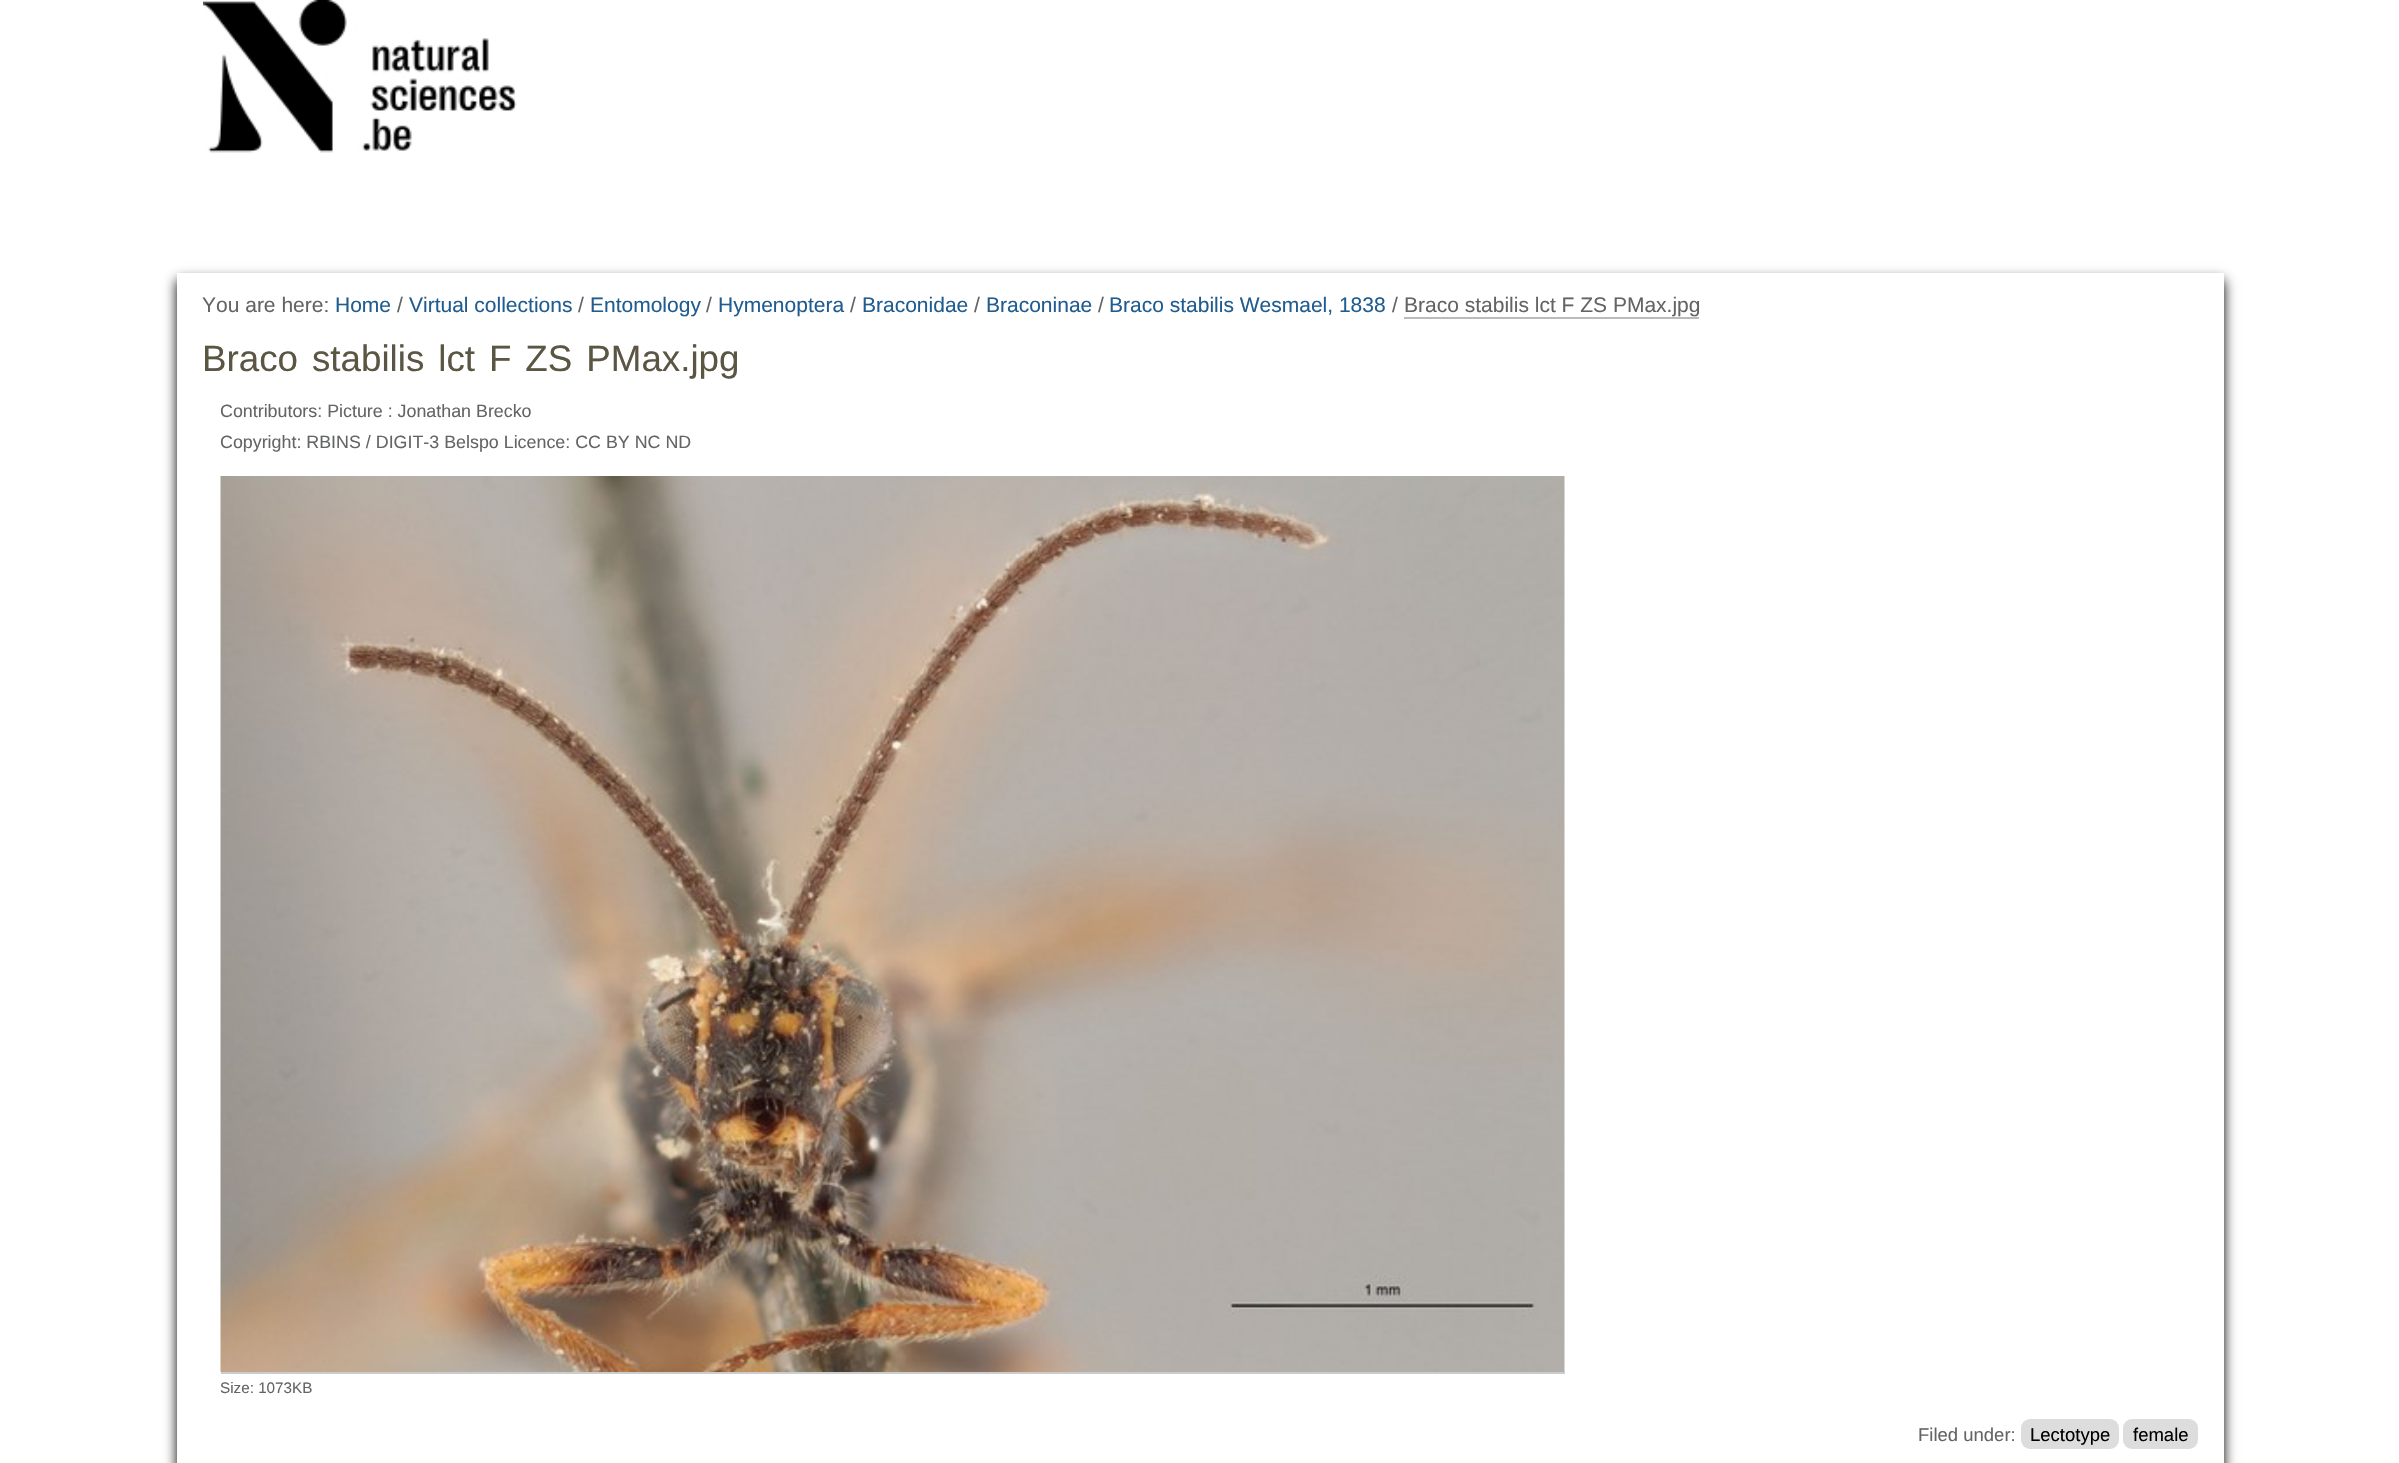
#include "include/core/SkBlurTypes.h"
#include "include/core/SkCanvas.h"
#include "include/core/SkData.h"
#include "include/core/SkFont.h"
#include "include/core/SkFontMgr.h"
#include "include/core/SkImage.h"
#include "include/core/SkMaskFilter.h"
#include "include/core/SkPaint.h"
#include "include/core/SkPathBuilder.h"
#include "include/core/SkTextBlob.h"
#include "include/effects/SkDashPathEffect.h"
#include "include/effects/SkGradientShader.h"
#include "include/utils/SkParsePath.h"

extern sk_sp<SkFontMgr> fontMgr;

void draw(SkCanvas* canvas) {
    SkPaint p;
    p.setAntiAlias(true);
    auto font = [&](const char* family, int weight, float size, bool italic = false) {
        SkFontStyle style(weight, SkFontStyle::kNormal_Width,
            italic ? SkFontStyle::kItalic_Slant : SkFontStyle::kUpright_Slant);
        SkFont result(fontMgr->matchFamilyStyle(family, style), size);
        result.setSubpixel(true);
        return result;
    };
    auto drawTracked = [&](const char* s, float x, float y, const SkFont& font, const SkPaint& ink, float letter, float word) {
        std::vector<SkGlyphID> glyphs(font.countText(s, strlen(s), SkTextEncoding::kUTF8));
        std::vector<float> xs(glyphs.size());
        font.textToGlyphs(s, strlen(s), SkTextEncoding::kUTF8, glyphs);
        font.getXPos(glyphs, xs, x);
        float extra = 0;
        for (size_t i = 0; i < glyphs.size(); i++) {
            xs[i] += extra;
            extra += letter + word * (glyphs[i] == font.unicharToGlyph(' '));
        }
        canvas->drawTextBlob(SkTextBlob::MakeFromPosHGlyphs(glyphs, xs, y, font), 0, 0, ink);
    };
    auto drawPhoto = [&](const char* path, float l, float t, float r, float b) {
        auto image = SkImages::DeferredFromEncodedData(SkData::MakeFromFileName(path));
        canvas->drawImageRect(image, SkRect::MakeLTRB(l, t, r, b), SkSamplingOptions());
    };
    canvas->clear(0xFFFFFFFF);
    drawPhoto("media/1.png", 203, 0, 517, 153);
    canvas->save();
    canvas->clipPath(SkPathBuilder(SkPathFillType::kEvenOdd).moveTo(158, 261).lineTo(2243, 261).lineTo(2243, 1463).lineTo(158, 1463).close().moveTo(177, 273).lineTo(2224, 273).lineTo(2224, 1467).lineTo(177, 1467).close().detach(), true);
    p.setColor(0xFF000000);
    p.setMaskFilter(SkMaskFilter::MakeBlur(kNormal_SkBlurStyle, 6));
    canvas->drawRect(SkRect::MakeLTRB(177, 280, 2224, 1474), p);
    p.setMaskFilter(nullptr);
    canvas->restore();
    auto font1 = font("Liberation Sans", 400, 21);
    p.setColor(0xFF636466);
    canvas->drawString("You are here:", 202, 312, font1, p);
    p.setColor(0xFF205C90);
    canvas->drawString("Home", 335, 312, font1, p);
    p.setColor(0xFF636466);
    canvas->drawString("/", 397, 312, font1, p);
    p.setColor(0xFF205C90);
    canvas->drawString("Virtual collections", 409, 312, font1, p);
    p.setColor(0xFF636466);
    canvas->drawString("/", 578, 312, font1, p);
    p.setColor(0xFF205C90);
    canvas->drawString("Entomology", 590, 312, font1, p);
    p.setColor(0xFF636466);
    canvas->drawString("/", 706, 312, font1, p);
    p.setColor(0xFF205C90);
    canvas->drawString("Hymenoptera", 718, 312, font1, p);
    p.setColor(0xFF636466);
    canvas->drawString("/", 850, 312, font1, p);
    p.setColor(0xFF205C90);
    canvas->drawString("Braconidae", 862, 312, font1, p);
    p.setColor(0xFF636466);
    canvas->drawString("/", 974, 312, font1, p);
    p.setColor(0xFF205C90);
    canvas->drawString("Braconinae", 986, 312, font1, p);
    p.setColor(0xFF636466);
    canvas->drawString("/", 1098, 312, font1, p);
    p.setColor(0xFF205C90);
    canvas->drawString("Braco stabilis Wesmael, 1838", 1109, 312, font1, p);
    p.setColor(0xFF636466);
    canvas->drawString("/", 1392, 312, font1, p);
    canvas->drawString("Braco stabilis lct F ZS PMax.jpg", 1404, 312, font1, p);
    p.setColor(0xFFBBBBBB);
    canvas->drawRect(SkRect::MakeLTRB(1404, 317, 1699, 319), p);
    auto font2 = font("Liberation Sans", 400, 36.75f);
    p.setColor(0xFF5B5644);
    drawTracked("Braco stabilis lct F ZS PMax.jpg", 202, 371, font2, p, 0, 3.75f);
    auto font3 = font("Liberation Sans", 400, 17.85f);
    p.setColor(0xFF636466);
    canvas->drawString("Contributors: Picture : Jonathan Brecko", 220, 417, font3, p);
    canvas->drawString("Copyright: RBINS / DIGIT-3 Belspo Licence: CC BY NC ND", 220, 448, font3, p);
    p.setColor(0xFFCCCCCC);
    canvas->drawRect(SkRect::MakeLTRB(221, 1372, 1565, 1374), p);
    drawPhoto("media/2.png", 220, 476, 1565, 1372);
    auto font4 = font("Liberation Sans", 400, 15.25f);
    p.setColor(0xFF636466);
    canvas->drawString("Size: 1073KB", 220, 1393, font4, p);
    auto font5 = font("Liberation Sans", 400, 18.5f);
    canvas->drawString("Filed under:", 1918, 1441, font5, p);
    p.setColor(0xFFDDDDDD);
    canvas->drawRoundRect(SkRect::MakeLTRB(2021, 1419, 2119, 1449), 9, 9, p);
    p.setColor(0xFF000000);
    canvas->drawString("Lectotype", 2030, 1441, font5, p);
    p.setColor(0xFFDDDDDD);
    canvas->drawRoundRect(SkRect::MakeLTRB(2123, 1419, 2198, 1449), 9, 9, p);
    p.setColor(0xFF000000);
    canvas->drawString("female", 2133, 1441, font5, p);
}
